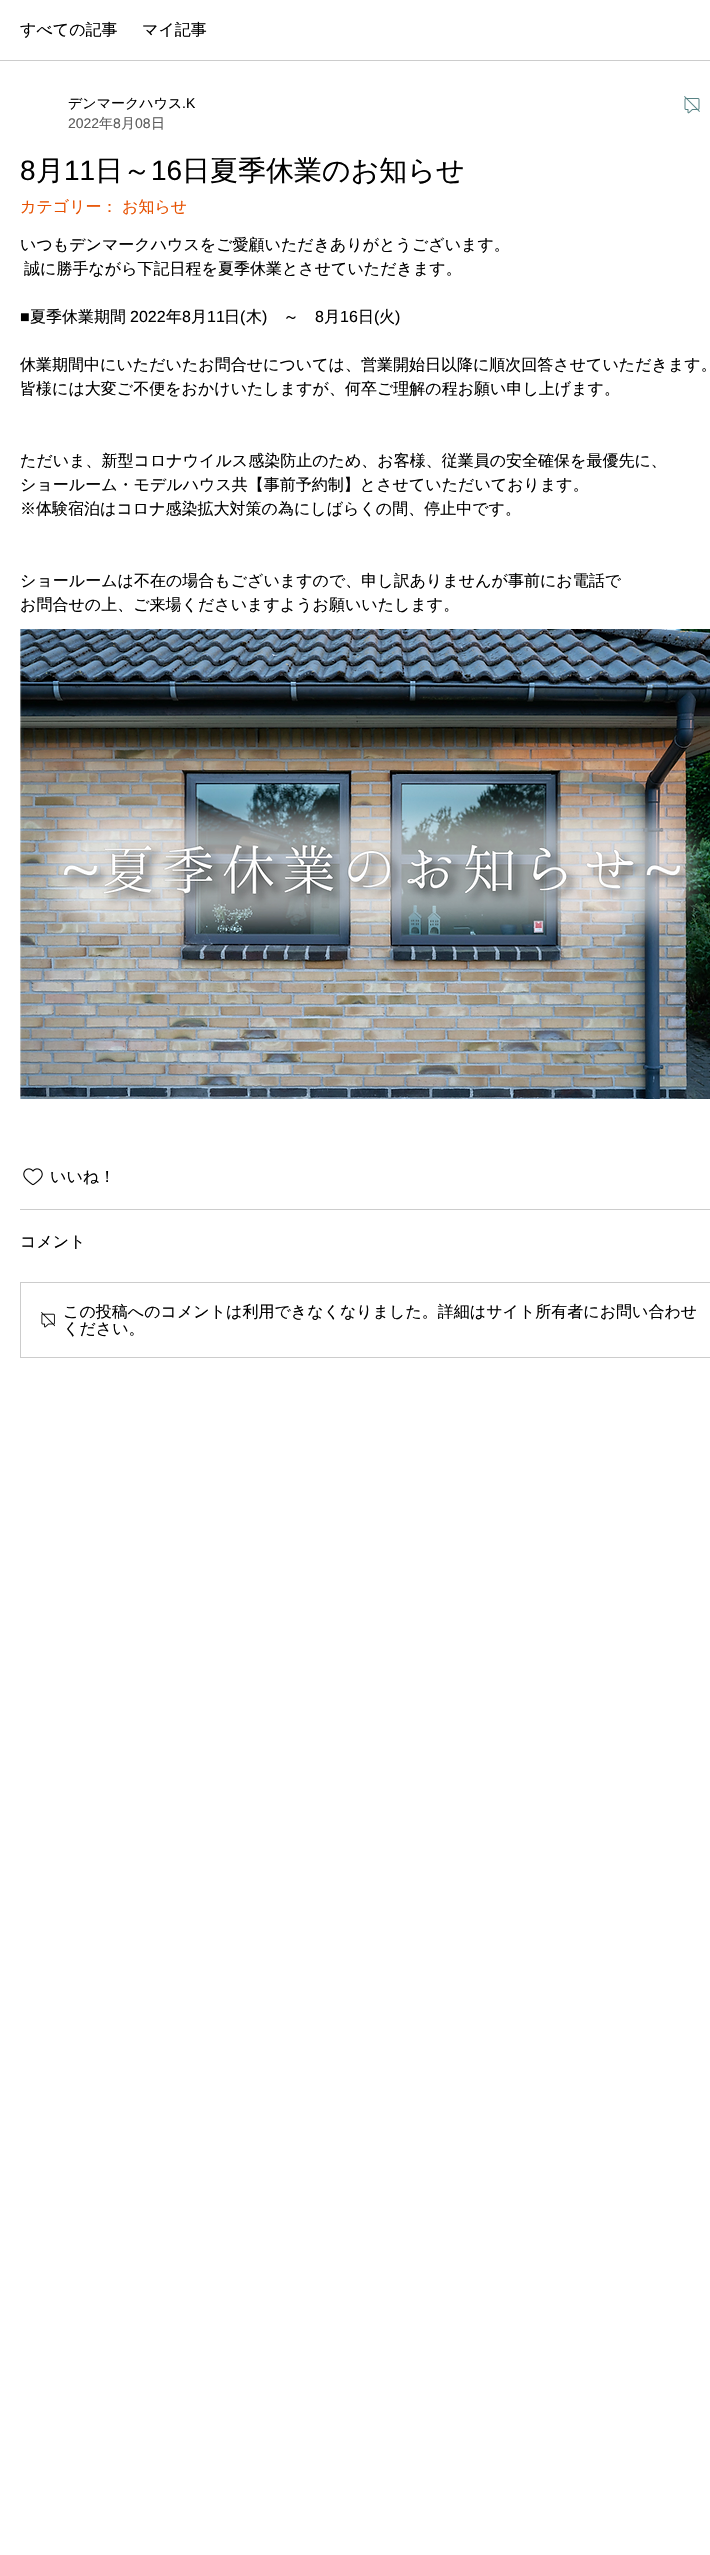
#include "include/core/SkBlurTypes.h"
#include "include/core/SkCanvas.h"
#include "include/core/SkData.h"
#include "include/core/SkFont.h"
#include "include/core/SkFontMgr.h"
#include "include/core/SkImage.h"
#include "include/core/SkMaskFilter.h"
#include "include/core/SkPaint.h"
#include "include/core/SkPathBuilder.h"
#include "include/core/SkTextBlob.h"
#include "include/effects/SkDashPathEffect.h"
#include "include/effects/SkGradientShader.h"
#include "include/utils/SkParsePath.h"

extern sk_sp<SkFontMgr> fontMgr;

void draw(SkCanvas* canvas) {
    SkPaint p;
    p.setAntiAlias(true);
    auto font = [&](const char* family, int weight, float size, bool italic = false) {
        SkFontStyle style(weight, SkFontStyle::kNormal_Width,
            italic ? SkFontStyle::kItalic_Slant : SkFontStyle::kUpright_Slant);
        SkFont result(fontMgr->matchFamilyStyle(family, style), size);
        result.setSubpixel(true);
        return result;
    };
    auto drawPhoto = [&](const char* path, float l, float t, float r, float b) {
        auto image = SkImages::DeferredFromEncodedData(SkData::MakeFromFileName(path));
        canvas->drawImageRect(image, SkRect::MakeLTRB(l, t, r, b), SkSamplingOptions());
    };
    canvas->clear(0xFFFFFFFF);
    p.setColor(0xFFCCCCCC);
    canvas->drawRect(SkRect::MakeLTRB(0, 60, 710, 61), p);
    auto font1 = font("WenQuanYi Zen Hei", 500, 16);
    p.setColor(0xFF000000);
    canvas->drawString("すべての記事", 20, 35, font1, p);
    canvas->drawString("マイ記事", 142, 35, font1, p);
    auto font2 = font("WenQuanYi Zen Hei", 500, 14);
    canvas->drawString("デンマークハウス", 68, 108, font2, p);
    auto font3 = font("Liberation Sans", 400, 14);
    canvas->drawString(".K", 182, 108, font3, p);
    p.setColor(0xFF5C5C5C);
    canvas->drawString("2022", 68, 128, font3, p);
    canvas->drawString("年", 99, 128, font2, p);
    canvas->drawString("8", 113, 128, font3, p);
    canvas->drawString("月", 121, 128, font2, p);
    canvas->drawString("08", 135, 128, font3, p);
    canvas->drawString("日", 151, 128, font2, p);
    drawPhoto("media/1.png", 684, 96, 700, 114);
    auto font4 = font("Liberation Sans", 400, 28);
    p.setColor(0xFF000000);
    canvas->drawString("8", 20, 180, font4, p);
    auto font5 = font("WenQuanYi Zen Hei", 500, 28);
    canvas->drawString("月", 36, 180, font5, p);
    canvas->drawString("11", 64, 180, font4, p);
    canvas->drawString("日～", 95, 180, font5, p);
    canvas->drawString("16", 151, 180, font4, p);
    canvas->drawString("日夏季休業のお知らせ", 182, 180, font5, p);
    p.setColor(0xFFE75101);
    canvas->drawString("カテゴリー：", 20, 212, font1, p);
    canvas->drawString("お知らせ", 122, 212, font1, p);
    p.setColor(0xFF000000);
    canvas->drawString("いつもデンマークハウスをご愛顧いただきありがとうございます。", 20, 250, font1, p);
    canvas->drawString("誠に勝手ながら下記日程を夏季休業とさせていただきます。", 24, 274, font1, p);
    auto font6 = font("Liberation Sans", 400, 16);
    canvas->drawString("■", 20, 322, font6, p);
    canvas->drawString("夏季休業期間", 30, 322, font1, p);
    canvas->drawString("2022", 130, 322, font6, p);
    canvas->drawString("年", 166, 322, font1, p);
    canvas->drawString("8", 182, 322, font6, p);
    canvas->drawString("月", 191, 322, font1, p);
    canvas->drawString("11", 207, 322, font6, p);
    canvas->drawString("日", 224, 322, font1, p);
    canvas->drawString("(", 240, 322, font6, p);
    canvas->drawString("木", 246, 322, font1, p);
    canvas->drawString(")", 262, 322, font6, p);
    canvas->drawString("～", 283, 322, font1, p);
    canvas->drawString("8", 315, 322, font6, p);
    canvas->drawString("月", 324, 322, font1, p);
    canvas->drawString("16", 340, 322, font6, p);
    canvas->drawString("日", 358, 322, font1, p);
    canvas->drawString("(", 374, 322, font6, p);
    canvas->drawString("火", 379, 322, font1, p);
    canvas->drawString(")", 395, 322, font6, p);
    {
        const struct { const char* s; float x, y; } items[] = {
            {"休業期間中にいただいたお問合せについては、営業開始日以降に順次回答させていただきます。", 20, 370},
            {"皆様には大変ご不便をおかけいたしますが、何卒ご理解の程お願い申し上げます。", 20, 394},
            {"ただいま、新型コロナウイルス感染防止のため、お客様、従業員の安全確保を最優先に、", 20, 466},
            {"ショールーム・モデルハウス共【事前予約制】とさせていただいております。", 20, 490},
            {"※体験宿泊はコロナ感染拡大対策の為にしばらくの間、停止中です。", 20, 514},
            {"ショールームは不在の場合もございますので、申し訳ありませんが事前にお電話で", 20, 586},
            {"お問合せの上、ご来場くださいますようお願いいたします。", 20, 610},
        };
        for (auto [s, x, y] : items) {
            canvas->drawString(s, x, y, font1, p);
        }
    }
    drawPhoto("media/2.png", 20, 629, 710, 1099);
    drawPhoto("media/3.png", 23, 1168, 43, 1186);
    canvas->drawString("いいね！", 50, 1182, font1, p);
    p.setColor(0xFFCCCCCC);
    canvas->drawRect(SkRect::MakeLTRB(20, 1209, 710, 1210), p);
    p.setColor(0xFF000000);
    canvas->drawString("コメント", 20, 1247, font1, p);
    p.setStyle(SkPaint::kStroke_Style);
    p.setStrokeWidth(1);
    p.setColor(0xFFCCCCCC);
    canvas->drawRect(SkRect::MakeLTRB(20.5f, 1282.5f, 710.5f, 1357.5f), p);
    drawPhoto("media/4.png", 41, 1312, 55, 1328);
    p.setStyle(SkPaint::kFill_Style);
    p.setColor(0xFF000000);
    canvas->drawString("この投稿へのコメントは利用できなくなりました。詳細はサイト所有者にお問い合わせ", 63, 1317, font1, p);
    canvas->drawString("ください。", 63, 1334, font1, p);
}
